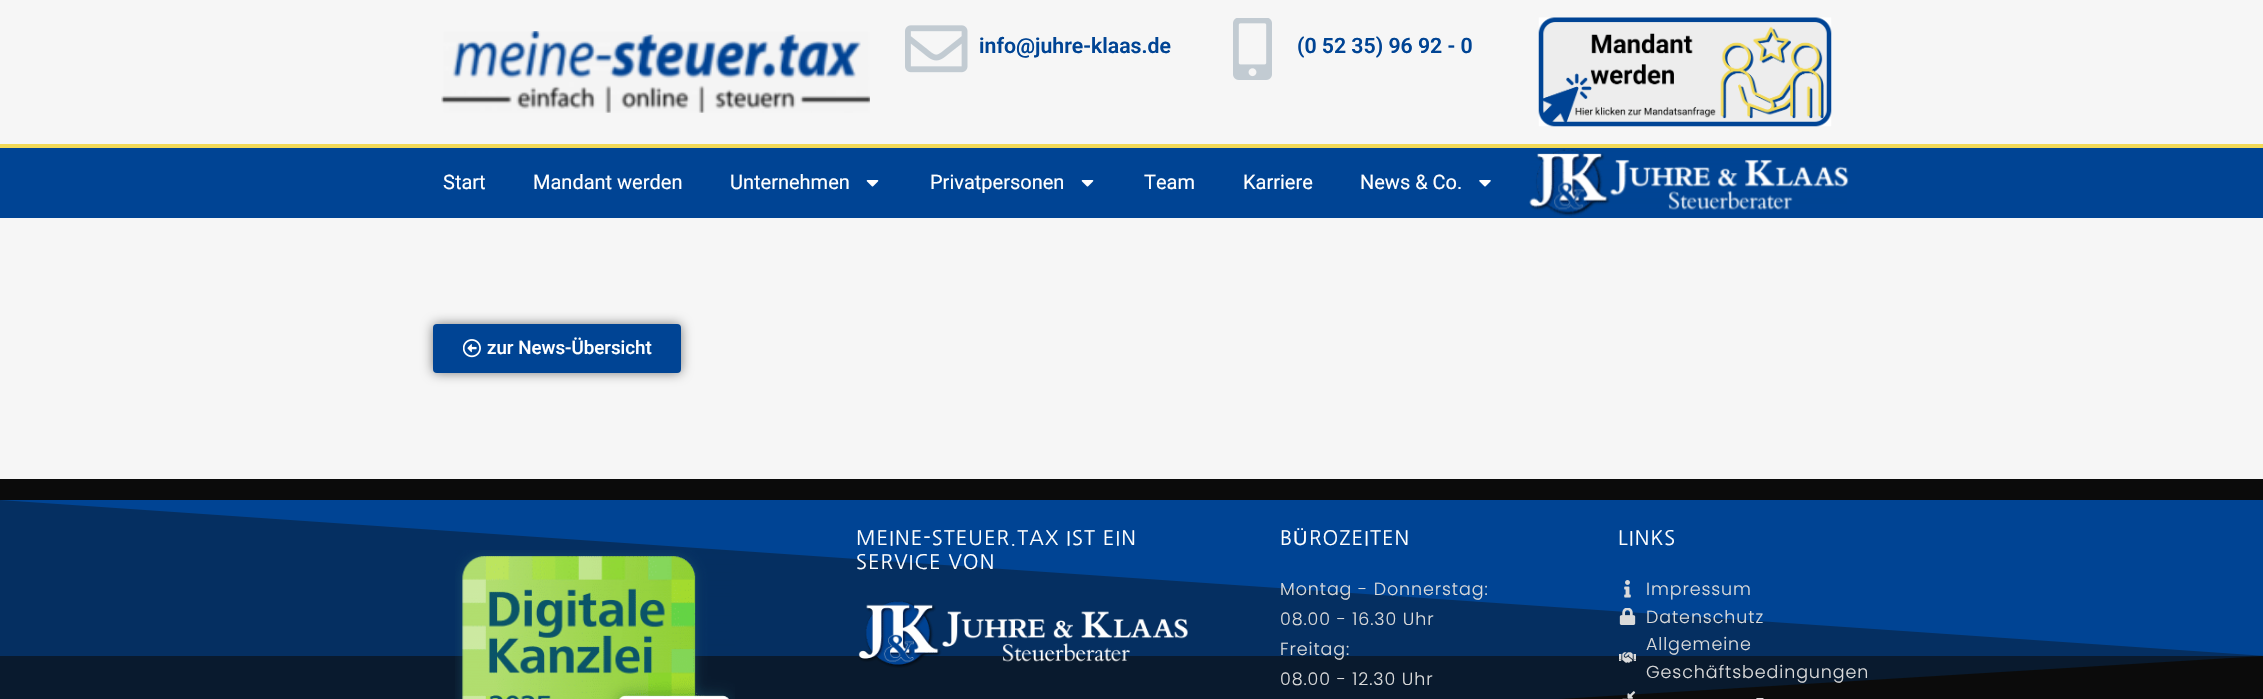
#include "include/core/SkBlurTypes.h"
#include "include/core/SkCanvas.h"
#include "include/core/SkData.h"
#include "include/core/SkFont.h"
#include "include/core/SkFontMgr.h"
#include "include/core/SkImage.h"
#include "include/core/SkMaskFilter.h"
#include "include/core/SkPaint.h"
#include "include/core/SkPathBuilder.h"
#include "include/core/SkTextBlob.h"
#include "include/effects/SkDashPathEffect.h"
#include "include/effects/SkGradientShader.h"
#include "include/utils/SkParsePath.h"

extern sk_sp<SkFontMgr> fontMgr;

void draw(SkCanvas* canvas) {
    SkPaint p;
    p.setAntiAlias(true);
    auto font = [&](const char* family, int weight, float size, bool italic = false) {
        SkFontStyle style(weight, SkFontStyle::kNormal_Width,
            italic ? SkFontStyle::kItalic_Slant : SkFontStyle::kUpright_Slant);
        SkFont result(fontMgr->matchFamilyStyle(family, style), size);
        result.setSubpixel(true);
        return result;
    };
    auto drawTracked = [&](const char* s, float x, float y, const SkFont& font, const SkPaint& ink, float letter, float word) {
        std::vector<SkGlyphID> glyphs(font.countText(s, strlen(s), SkTextEncoding::kUTF8));
        std::vector<float> xs(glyphs.size());
        font.textToGlyphs(s, strlen(s), SkTextEncoding::kUTF8, glyphs);
        font.getXPos(glyphs, xs, x);
        float extra = 0;
        for (size_t i = 0; i < glyphs.size(); i++) {
            xs[i] += extra;
            extra += letter + word * (glyphs[i] == font.unicharToGlyph(' '));
        }
        canvas->drawTextBlob(SkTextBlob::MakeFromPosHGlyphs(glyphs, xs, y, font), 0, 0, ink);
    };
    auto drawPhoto = [&](const char* path, float l, float t, float r, float b) {
        auto image = SkImages::DeferredFromEncodedData(SkData::MakeFromFileName(path));
        canvas->drawImageRect(image, SkRect::MakeLTRB(l, t, r, b), SkSamplingOptions());
    };
    canvas->clear(0xFFF6F6F6);
    drawPhoto("media/1.png", 441, 31, 870, 113);
    drawPhoto("media/2.png", 905, 25, 968, 73);
    auto font1 = font("Roboto", 600, 21.25f);
    p.setColor(0xFF004494);
    canvas->drawString("info@juhre-klaas.de", 979, 53, font1, p);
    drawPhoto("media/3.png", 1233, 18, 1272, 80);
    canvas->drawString("(0 52 35) 96 92 - 0", 1297, 53, font1, p);
    drawPhoto("media/4.png", 1538, 17, 1832, 127);
    canvas->drawRect(SkRect::MakeLTRB(0, 148, 2263, 218), p);
    p.setColor(0xFFF2D956);
    canvas->drawRect(SkRect::MakeLTRB(0, 144, 2263, 148), p);
    auto font2 = font("Roboto", 400, 20);
    p.setColor(0xFFFFFFFF);
    {
        const struct { const char* s; float x, y; } items[] = {
            {"Start", 443, 189},
            {"Mandant werden", 533, 189},
            {"Unternehmen", 730, 189},
        };
        for (auto [s, x, y] : items) {
            canvas->drawString(s, x, y, font2, p);
        }
    }
    drawPhoto("media/5.png", 866, 180, 879, 187);
    canvas->drawString("Privatpersonen", 930, 189, font2, p);
    drawPhoto("media/5.png", 1081, 180, 1094, 187);
    {
        const struct { const char* s; float x, y; } items[] = {
            {"Team", 1144, 189},
            {"Karriere", 1243, 189},
            {"News & Co.", 1360, 189},
        };
        for (auto [s, x, y] : items) {
            canvas->drawString(s, x, y, font2, p);
        }
    }
    drawPhoto("media/6.png", 1479, 180, 1491, 187);
    drawPhoto("media/7.png", 1529, 149, 1849, 217);
    p.setColor(0x80000000);
    p.setMaskFilter(SkMaskFilter::MakeBlur(kNormal_SkBlurStyle, 6));
    canvas->drawRoundRect(SkRect::MakeLTRB(433, 324, 681, 373), 4, 4, p);
    p.setMaskFilter(nullptr);
    p.setColor(0xFF004494);
    canvas->drawRoundRect(SkRect::MakeLTRB(433, 324, 681, 373), 4, 4, p);
    drawPhoto("media/8.png", 463, 339, 481, 358);
    auto font3 = font("Roboto", 500, 18.75f);
    p.setColor(0xFFFFFFFF);
    canvas->drawString("zur News-Übersicht", 487, 354, font3, p);
    p.setColor(0xFF0B0B0B);
    canvas->drawRect(SkRect::MakeLTRB(0, 479, 2263, 699), p);
    p.setColor(0xFF062850);
    canvas->drawRect(SkRect::MakeLTRB(0, 500, 2263, 656), p);
    p.setColor(0xFF004494);
    canvas->drawPath(SkPathBuilder().moveTo(0, 500).lineTo(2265, 500).lineTo(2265, 656).close().detach(), p);
    p.setColor(0x40004494);
    canvas->drawPath(SkPathBuilder().moveTo(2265, 500).lineTo(0, 500).lineTo(0, 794).lineTo(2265, 656).close().detach(), p);
    drawPhoto("media/9.png", 455, 550, 735, 699);
    auto font4 = font("NanumGothic", 400, 20);
    p.setColor(0xFFFFFFFF);
    drawTracked("MEINE-STEUER.TAX IST EIN", 856, 545, font4, p, 1.1f, 0);
    drawTracked("SERVICE VON", 856, 569, font4, p, 1.1f, 0);
    drawPhoto("media/10.png", 858, 600, 1188, 668);
    drawTracked("B", 1280, 545, font4, p, 1.1f, 0);
    auto font5 = font("Liberation Sans", 400, 20);
    drawTracked("Ü", 1293, 545, font5, p, 1.1f, 0);
    drawTracked("ROZEITEN", 1309, 545, font4, p, 1.1f, 0);
    auto font6 = font("Poppins", 300, 17.5f);
    p.setColor(0xFFDADADA);
    {
        const struct { const char* s; float x, y; } items[] = {
            {"Montag - Donnerstag:", 1280, 595},
            {"08.00 - 16.30 Uhr", 1280, 625},
            {"Freitag:", 1280, 655},
            {"08.00 - 12.30 Uhr", 1280, 685},
        };
        for (auto [s, x, y] : items) {
            drawTracked(s, x, y, font6, p, 0.9f, 0);
        }
    }
    p.setColor(0xFFFFFFFF);
    drawTracked("LINKS", 1618, 545, font4, p, 1.1f, 0);
    drawPhoto("media/11.png", 1624, 580, 1631, 598);
    p.setColor(0xFFDADADA);
    drawTracked("Impressum", 1646, 595, font6, p, 0.9f, 0);
    drawPhoto("media/12.png", 1619, 608, 1636, 625);
    drawTracked("Datenschutz", 1646, 623, font6, p, 0.9f, 0);
    drawPhoto("media/13.png", 1619, 652, 1636, 663);
    drawTracked("Allgemeine", 1646, 650, font6, p, 0.9f, 0);
    drawTracked("Geschäftsbedingungen", 1646, 678, font6, p, 0.9f, 0);
    drawPhoto("media/14.png", 1622, 691, 1636, 699);
    drawTracked("-", 1756, 705, font6, p, 0.9f, 0);
}
